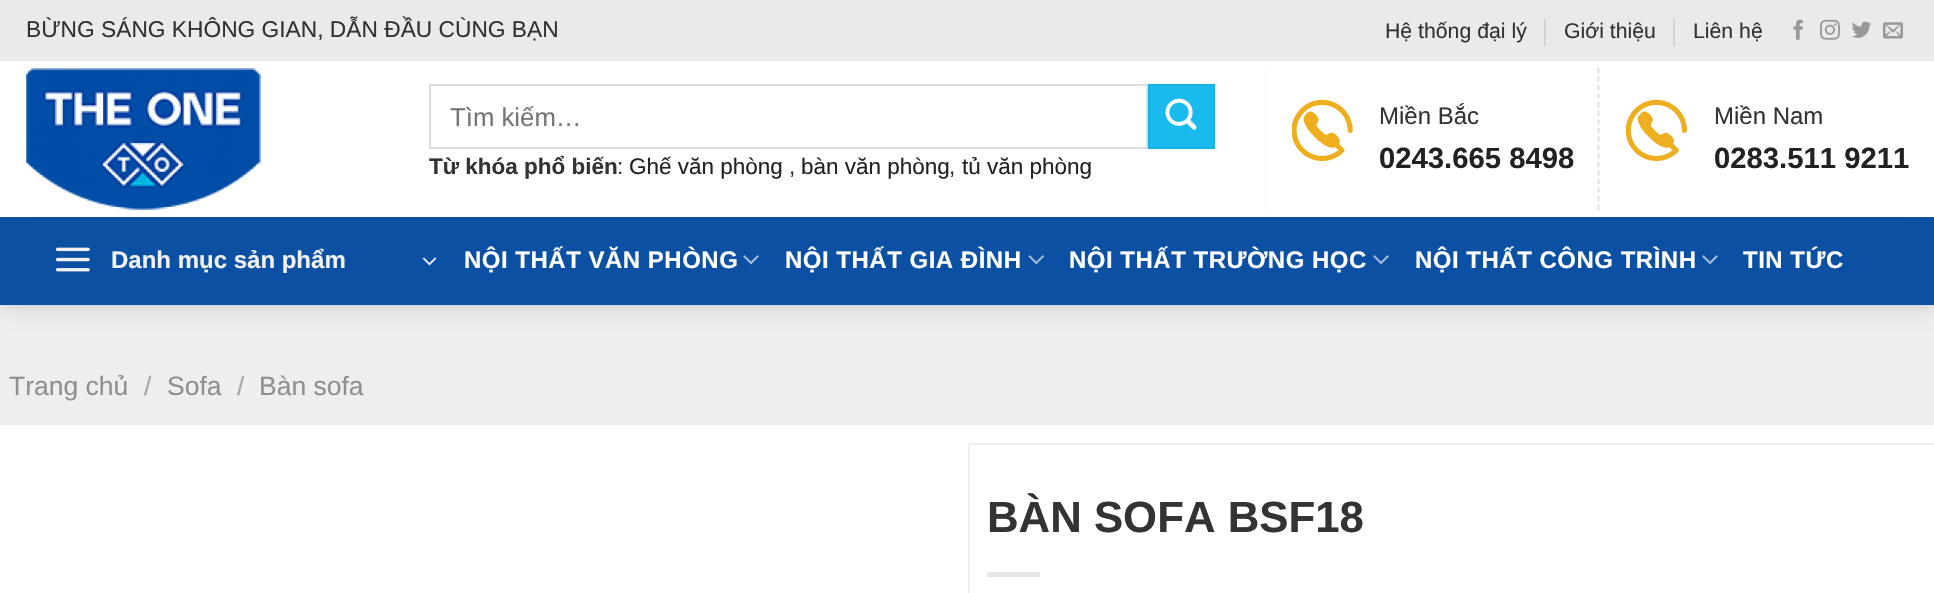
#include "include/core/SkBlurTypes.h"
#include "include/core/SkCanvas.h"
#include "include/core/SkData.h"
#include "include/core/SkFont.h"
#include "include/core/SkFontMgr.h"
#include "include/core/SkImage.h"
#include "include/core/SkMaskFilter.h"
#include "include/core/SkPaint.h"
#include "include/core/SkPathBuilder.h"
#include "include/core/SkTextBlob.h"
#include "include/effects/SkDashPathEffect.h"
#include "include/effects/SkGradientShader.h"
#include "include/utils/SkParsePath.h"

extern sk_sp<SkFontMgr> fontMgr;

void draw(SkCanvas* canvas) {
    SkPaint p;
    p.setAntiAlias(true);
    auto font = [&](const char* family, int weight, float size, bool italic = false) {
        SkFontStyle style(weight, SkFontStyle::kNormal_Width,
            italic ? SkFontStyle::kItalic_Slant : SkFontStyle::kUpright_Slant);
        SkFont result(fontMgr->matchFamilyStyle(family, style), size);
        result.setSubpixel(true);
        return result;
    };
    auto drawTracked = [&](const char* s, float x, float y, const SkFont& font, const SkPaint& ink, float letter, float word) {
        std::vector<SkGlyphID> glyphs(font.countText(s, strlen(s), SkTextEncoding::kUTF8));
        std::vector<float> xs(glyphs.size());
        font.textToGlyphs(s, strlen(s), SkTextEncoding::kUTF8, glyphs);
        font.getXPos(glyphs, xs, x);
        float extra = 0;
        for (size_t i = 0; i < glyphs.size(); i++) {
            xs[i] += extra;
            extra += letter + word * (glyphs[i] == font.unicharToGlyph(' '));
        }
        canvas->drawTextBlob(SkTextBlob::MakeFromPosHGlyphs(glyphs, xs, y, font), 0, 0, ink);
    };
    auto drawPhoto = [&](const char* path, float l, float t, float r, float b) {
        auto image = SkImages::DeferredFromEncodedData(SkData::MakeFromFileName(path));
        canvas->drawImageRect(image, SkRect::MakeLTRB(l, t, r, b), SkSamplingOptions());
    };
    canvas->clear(0xFFFFFFFF);
    p.setColor(0xFFEEEEEE);
    canvas->drawRect(SkRect::MakeLTRB(0, 305, 1934, 425), p);
    p.setColor(0x26000000);
    p.setMaskFilter(SkMaskFilter::MakeBlur(kNormal_SkBlurStyle, 9));
    canvas->drawRect(SkRect::MakeLTRB(2, 2, 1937, 306), p);
    p.setMaskFilter(nullptr);
    p.setColor(0xFFEAEAEA);
    canvas->drawRect(SkRect::MakeLTRB(0, 0, 1934, 61), p);
    auto font1 = font("Liberation Sans", 400, 22.75f);
    p.setColor(0xFF333333);
    canvas->drawString("BỪNG SÁNG KHÔNG GIAN, DẪN ĐẦU CÙNG BẠN", 26, 37, font1, p);
    auto font2 = font("Liberation Sans", 400, 21.25f);
    canvas->drawString("Hệ thống đại lý", 1385, 38, font2, p);
    p.setColor(0xFFD3D3D3);
    canvas->drawRect(SkRect::MakeLTRB(1544, 19, 1546, 46), p);
    p.setColor(0xFF333333);
    canvas->drawString("Giới thiệu", 1564, 38, font2, p);
    p.setColor(0xFFD3D3D3);
    canvas->drawRect(SkRect::MakeLTRB(1673, 19, 1675, 46), p);
    p.setColor(0xFF333333);
    canvas->drawString("Liên hệ", 1693, 38, font2, p);
    drawPhoto("media/1.png", 1793, 19, 1803, 40);
    drawPhoto("media/2.png", 1820, 19, 1840, 40);
    drawPhoto("media/3.png", 1851, 21, 1872, 38);
    drawPhoto("media/4.png", 1883, 22, 1903, 39);
    p.setColor(0xFFFFFFFF);
    canvas->drawRect(SkRect::MakeLTRB(0, 61, 1934, 217), p);
    drawPhoto("media/5.png", 26, 68, 261, 210);
    p.setStyle(SkPaint::kStroke_Style);
    p.setStrokeWidth(2);
    p.setColor(0xFFDDDDDD);
    canvas->drawRect(SkRect::MakeLTRB(430, 85, 1147, 148), p);
    auto font3 = font("Liberation Sans", 400, 25.75f);
    p.setStyle(SkPaint::kFill_Style);
    p.setColor(0xFF757575);
    canvas->drawString("Tìm kiếm…", 450, 126, font3, p);
    p.setColor(0xFF19BAEE);
    canvas->drawRect(SkRect::MakeLTRB(1149, 85, 1214, 148), p);
    p.setStyle(SkPaint::kStroke_Style);
    p.setColor(0xFF18B1E2);
    canvas->drawRect(SkRect::MakeLTRB(1149, 85, 1214, 148), p);
    drawPhoto("media/6.png", 1165, 98, 1197, 130);
    auto font4 = font("Liberation Sans", 700, 22.5f);
    p.setStyle(SkPaint::kFill_Style);
    p.setColor(0xFF333333);
    canvas->drawString("Từ khóa phổ biến", 429, 174, font4, p);
    auto font5 = font("Liberation Sans", 400, 22.5f);
    canvas->drawString(":", 617, 174, font5, p);
    p.setColor(0xFF222222);
    canvas->drawString("Ghế văn phòng", 629, 174, font5, p);
    p.setColor(0xFF333333);
    canvas->drawString(",", 789, 174, font5, p);
    p.setColor(0xFF222222);
    canvas->drawString("bàn văn phòng", 801, 174, font5, p);
    p.setColor(0xFF333333);
    canvas->drawString(",", 949, 174, font5, p);
    p.setColor(0xFF222222);
    canvas->drawString("tủ văn phòng", 962, 174, font5, p);
    canvas->save();
    canvas->clipRect(SkRect::MakeLTRB(1265, 68, 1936, 210));
    p.setStyle(SkPaint::kStroke_Style);
    p.setStrokeWidth(1.8f);
    p.setColor(0xFFDDDDDD);
    p.setPathEffect(SkDashPathEffect::Make({{5.25f, 3.29f}}, 0));
    canvas->drawPath(SkPathBuilder().moveTo(1264.5f, 68).lineTo(1264.5f, 210).detach(), p);
    p.setPathEffect(nullptr);
    canvas->restore();
    drawPhoto("media/7.png", 1292, 99, 1353, 161);
    auto font6 = font("Liberation Sans", 400, 24);
    p.setStyle(SkPaint::kFill_Style);
    p.setColor(0xFF333333);
    canvas->drawString("Miền Bắc", 1379, 124, font6, p);
    auto font7 = font("Liberation Sans", 700, 29.25f);
    p.setColor(0xFF222222);
    canvas->drawString("0243.665 8498", 1379, 168, font7, p);
    p.setStyle(SkPaint::kStroke_Style);
    p.setColor(0xFFDDDDDD);
    p.setPathEffect(SkDashPathEffect::Make({{5.25f, 3.29f}}, 0));
    canvas->drawPath(SkPathBuilder().moveTo(1598.5f, 68).lineTo(1598.5f, 210).detach(), p);
    p.setPathEffect(nullptr);
    drawPhoto("media/8.png", 1626, 99, 1687, 161);
    p.setStyle(SkPaint::kFill_Style);
    p.setColor(0xFF333333);
    canvas->drawString("Miền Nam", 1714, 124, font6, p);
    p.setColor(0xFF222222);
    canvas->drawString("0283.511 9211", 1714, 168, font7, p);
    p.setColor(0xFF0C50A3);
    canvas->drawRect(SkRect::MakeLTRB(0, 217, 1934, 305), p);
    p.setColor(0xFF104D98);
    canvas->drawRect(SkRect::MakeLTRB(26, 217, 1909, 219), p);
    drawPhoto("media/9.png", 55, 247, 90, 272);
    auto font8 = font("Liberation Sans", 700, 24);
    p.setColor(0xFFF1F1F1);
    canvas->drawString("Danh mục sản phẩm", 111, 268, font8, p);
    drawPhoto("media/10.png", 422, 257, 437, 266);
    p.setColor(0xFFFFFFFF);
    drawTracked("NỘI THẤT VĂN PHÒNG", 464, 268, font8, p, 0.5f, 0);
    drawPhoto("media/11.png", 743, 255, 759, 265);
    drawTracked("NỘI THẤT GIA ĐÌNH", 785, 268, font8, p, 0.5f, 0);
    drawPhoto("media/12.png", 1028, 255, 1044, 265);
    drawTracked("NỘI THẤT TRƯỜNG HỌC", 1069, 268, font8, p, 0.5f, 0);
    drawPhoto("media/11.png", 1373, 255, 1389, 265);
    drawTracked("NỘI THẤT CÔNG TRÌNH", 1415, 268, font8, p, 0.5f, 0);
    drawPhoto("media/11.png", 1702, 255, 1718, 265);
    drawTracked("TIN TỨC", 1743, 268, font8, p, 0.5f, 0);
    auto font9 = font("Liberation Sans", 400, 26.5f);
    p.setColor(0xFF8F8F8F);
    canvas->drawString("Trang chủ", 9, 395, font9, p);
    p.setColor(0xFFA7A7A7);
    canvas->drawString("/", 144, 395, font9, p);
    p.setColor(0xFF8F8F8F);
    canvas->drawString("Sofa", 167, 395, font9, p);
    p.setColor(0xFFA7A7A7);
    canvas->drawString("/", 237, 395, font9, p);
    p.setColor(0xFF8F8F8F);
    canvas->drawString("Bàn sofa", 259, 395, font9, p);
    p.setStyle(SkPaint::kStroke_Style);
    p.setStrokeWidth(2);
    p.setColor(0xFFEEEEEE);
    canvas->drawRect(SkRect::MakeLTRB(969, 444, 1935, 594), p);
    auto font10 = font("Liberation Sans", 700, 43.75f);
    p.setStyle(SkPaint::kFill_Style);
    p.setColor(0xFF333333);
    canvas->drawString("BÀN SOFA BSF18", 987, 532, font10, p);
    p.setColor(0xFFE6E6E6);
    canvas->drawRect(SkRect::MakeLTRB(987, 572, 1040, 577), p);
}
